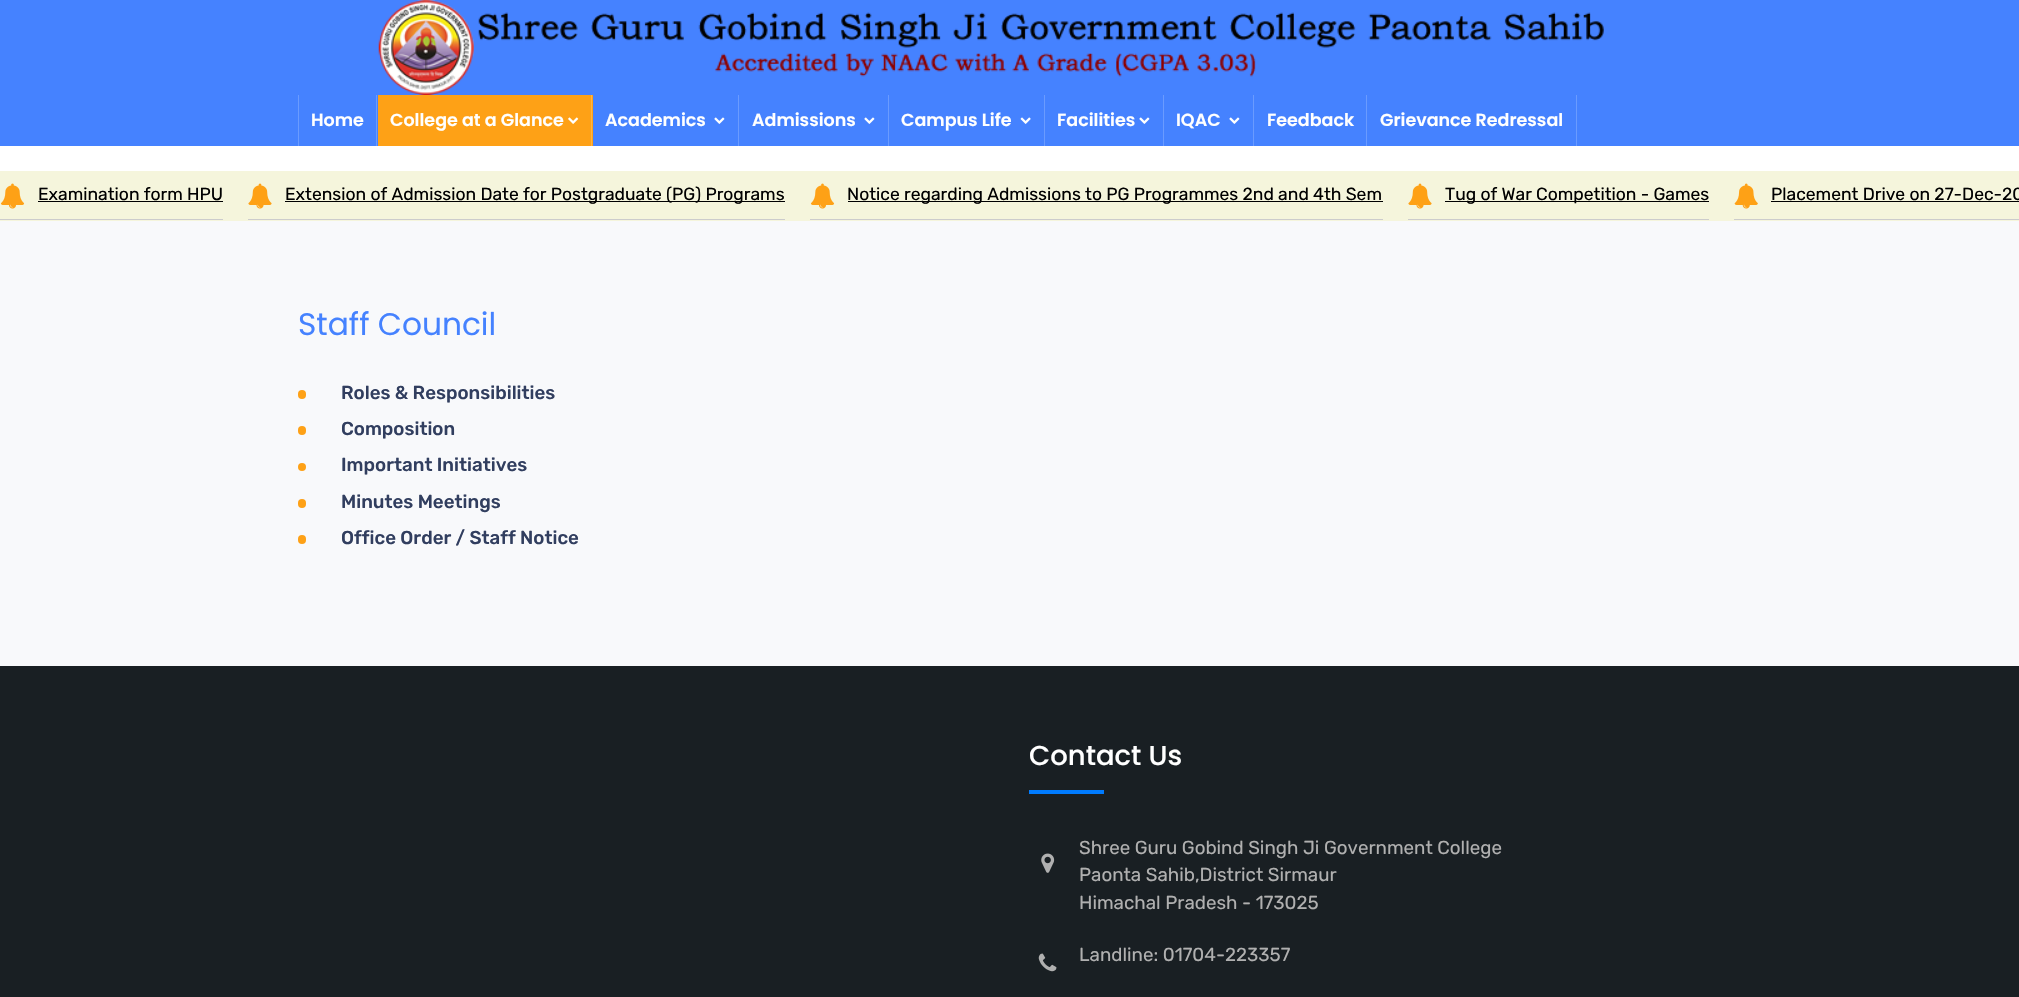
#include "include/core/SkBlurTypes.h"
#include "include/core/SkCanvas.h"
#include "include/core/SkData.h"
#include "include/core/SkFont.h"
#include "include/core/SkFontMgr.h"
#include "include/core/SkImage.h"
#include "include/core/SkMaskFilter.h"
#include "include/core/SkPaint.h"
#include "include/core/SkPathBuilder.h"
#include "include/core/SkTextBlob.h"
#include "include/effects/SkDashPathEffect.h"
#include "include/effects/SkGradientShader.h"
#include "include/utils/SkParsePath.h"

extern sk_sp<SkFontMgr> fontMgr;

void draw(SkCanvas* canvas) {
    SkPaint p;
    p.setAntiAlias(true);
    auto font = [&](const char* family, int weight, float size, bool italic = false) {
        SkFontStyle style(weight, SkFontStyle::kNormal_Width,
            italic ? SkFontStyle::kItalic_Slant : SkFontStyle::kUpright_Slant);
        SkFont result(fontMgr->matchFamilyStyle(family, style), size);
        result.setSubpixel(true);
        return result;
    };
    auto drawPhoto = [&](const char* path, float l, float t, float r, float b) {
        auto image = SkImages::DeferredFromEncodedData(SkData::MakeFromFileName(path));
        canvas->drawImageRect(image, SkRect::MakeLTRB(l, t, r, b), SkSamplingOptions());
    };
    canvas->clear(0xFFFFFFFF);
    p.setColor(0xFF4582FF);
    canvas->drawRect(SkRect::MakeLTRB(0, 0, 2019, 146), p);
    drawPhoto("media/1.png", 378, 0, 1604, 95);
    p.setColor(0xFF6A9BFF);
    canvas->drawRect(SkRect::MakeLTRB(376, 95, 377, 146), p);
    canvas->drawRect(SkRect::MakeLTRB(298, 95, 299, 146), p);
    auto font1 = font("Poppins", 600, 17.5f);
    p.setColor(0xFFFFFFFF);
    canvas->drawString("Home", 311, 126, font1, p);
    p.setColor(0xFFFEA116);
    canvas->drawRect(SkRect::MakeLTRB(378, 95, 593, 146), p);
    p.setColor(0xFFFEB445);
    canvas->drawRect(SkRect::MakeLTRB(591, 95, 592, 146), p);
    p.setColor(0xFFFFFFFF);
    canvas->drawString("College at a Glance", 390, 126, font1, p);
    drawPhoto("media/2.png", 568, 117, 579, 124);
    p.setColor(0xFF6A9BFF);
    canvas->drawRect(SkRect::MakeLTRB(738, 95, 739, 146), p);
    p.setColor(0xFFFFFFFF);
    canvas->drawString("Academics", 605, 126, font1, p);
    drawPhoto("media/3.png", 714, 117, 725, 124);
    p.setColor(0xFF6A9BFF);
    canvas->drawRect(SkRect::MakeLTRB(888, 95, 889, 146), p);
    p.setColor(0xFFFFFFFF);
    canvas->drawString("Admissions", 752, 126, font1, p);
    drawPhoto("media/3.png", 864, 117, 875, 124);
    p.setColor(0xFF6A9BFF);
    canvas->drawRect(SkRect::MakeLTRB(1044, 95, 1045, 146), p);
    p.setColor(0xFFFFFFFF);
    canvas->drawString("Campus Life", 901, 126, font1, p);
    drawPhoto("media/4.png", 1020, 117, 1031, 124);
    p.setColor(0xFF6A9BFF);
    canvas->drawRect(SkRect::MakeLTRB(1163, 95, 1164, 146), p);
    p.setColor(0xFFFFFFFF);
    canvas->drawString("Facilities", 1057, 126, font1, p);
    drawPhoto("media/3.png", 1139, 117, 1150, 124);
    p.setColor(0xFF6A9BFF);
    canvas->drawRect(SkRect::MakeLTRB(1253, 95, 1254, 146), p);
    p.setColor(0xFFFFFFFF);
    canvas->drawString("IQAC", 1176, 126, font1, p);
    drawPhoto("media/3.png", 1229, 117, 1240, 124);
    p.setColor(0xFF6A9BFF);
    canvas->drawRect(SkRect::MakeLTRB(1366, 95, 1367, 146), p);
    p.setColor(0xFFFFFFFF);
    canvas->drawString("Feedback", 1267, 126, font1, p);
    p.setColor(0xFF6A9BFF);
    canvas->drawRect(SkRect::MakeLTRB(1576, 95, 1577, 146), p);
    p.setColor(0xFFFFFFFF);
    canvas->drawString("Grievance Redressal", 1380, 126, font1, p);
    p.setColor(0xFFF5F5DC);
    canvas->drawRect(SkRect::MakeLTRB(0, 171, 2019, 221), p);
    p.setColor(0xFFCCCCCC);
    canvas->drawRect(SkRect::MakeLTRB(0, 219, 223, 220), p);
    drawPhoto("media/5.png", 0, 183, 25, 209);
    auto font2 = font("Rubik", 400, 17.5f);
    p.setColor(0xFF000000);
    canvas->drawString("Examination form HPU", 38, 200, font2, p);
    canvas->drawRect(SkRect::MakeLTRB(38, 201, 223, 202), p);
    p.setColor(0xFFCCCCCC);
    canvas->drawRect(SkRect::MakeLTRB(248, 219, 785, 220), p);
    drawPhoto("media/6.png", 248, 183, 272, 209);
    p.setColor(0xFF000000);
    canvas->drawRect(SkRect::MakeLTRB(285, 201, 785, 202), p);
    canvas->drawString("Extension of Admission Date for Postgraduate (PG) Programs", 285, 200, font2, p);
    p.setColor(0xFFCCCCCC);
    canvas->drawRect(SkRect::MakeLTRB(810, 219, 1383, 220), p);
    drawPhoto("media/5.png", 810, 183, 835, 209);
    p.setColor(0xFF000000);
    canvas->drawRect(SkRect::MakeLTRB(848, 201, 1383, 202), p);
    canvas->drawString("Notice regarding Admissions to PG Programmes 2nd and 4th Sem", 847, 200, font2, p);
    p.setColor(0xFFCCCCCC);
    canvas->drawRect(SkRect::MakeLTRB(1408, 219, 1709, 220), p);
    drawPhoto("media/6.png", 1408, 183, 1432, 209);
    p.setColor(0xFF000000);
    canvas->drawRect(SkRect::MakeLTRB(1445, 201, 1709, 202), p);
    canvas->drawString("Tug of War Competition - Games", 1445, 200, font2, p);
    p.setColor(0xFFCCCCCC);
    canvas->drawRect(SkRect::MakeLTRB(1734, 219, 2019, 220), p);
    drawPhoto("media/7.png", 1734, 183, 1758, 209);
    p.setColor(0xFF000000);
    canvas->drawString("Placement Drive on 27-Dec-20", 1771, 200, font2, p);
    canvas->drawRect(SkRect::MakeLTRB(1771, 201, 2019, 202), p);
    p.setColor(0xFFF8F9FB);
    canvas->drawRect(SkRect::MakeLTRB(0, 221, 2019, 666), p);
    auto font3 = font("Poppins", 400, 31.25f);
    p.setColor(0xFF4582FF);
    canvas->drawString("Staff Council", 298, 335, font3, p);
    p.setColor(0xFFFEA116);
    canvas->drawRoundRect(SkRect::MakeLTRB(298, 390, 306, 399), 4, 4, p);
    auto font4 = font("Rubik", 500, 18.75f);
    p.setColor(0xFF313E5F);
    canvas->drawString("Roles & Responsibilities", 341, 399, font4, p);
    p.setColor(0xFFFEA116);
    canvas->drawRoundRect(SkRect::MakeLTRB(298, 426, 306, 435), 4, 4, p);
    p.setColor(0xFF313E5F);
    canvas->drawString("Composition", 341, 435, font4, p);
    p.setColor(0xFFFEA116);
    canvas->drawCircle(302, 467, 4, p);
    p.setColor(0xFF313E5F);
    canvas->drawString("Important Initiatives", 341, 471, font4, p);
    p.setColor(0xFFFEA116);
    canvas->drawRoundRect(SkRect::MakeLTRB(298, 499, 306, 508), 4, 4, p);
    p.setColor(0xFF313E5F);
    canvas->drawString("Minutes Meetings", 341, 508, font4, p);
    p.setColor(0xFFFEA116);
    canvas->drawRoundRect(SkRect::MakeLTRB(298, 535, 306, 544), 4, 4, p);
    p.setColor(0xFF313E5F);
    canvas->drawString("Office Order / Staff Notice", 341, 544, font4, p);
    p.setColor(0xFF191F23);
    canvas->drawRect(SkRect::MakeLTRB(0, 666, 2019, 997), p);
    auto font5 = font("Poppins", 500, 27.5f);
    p.setColor(0xFFFFFFFF);
    canvas->drawString("Contact Us", 1029, 765, font5, p);
    p.setColor(0xFF007BFF);
    canvas->drawRect(SkRect::MakeLTRB(1029, 790, 1104, 794), p);
    auto font6 = font("Rubik", 400, 18.75f);
    p.setColor(0xFFB0B0B0);
    canvas->drawString("Shree Guru Gobind Singh Ji Government College", 1079, 854, font6, p);
    drawPhoto("media/8.png", 1041, 853, 1055, 873);
    canvas->drawString("Paonta Sahib,District Sirmaur", 1079, 881, font6, p);
    canvas->drawString("Himachal Pradesh - 173025", 1079, 909, font6, p);
    drawPhoto("media/9.png", 1038, 953, 1057, 972);
    canvas->drawString("Landline: 01704-223357", 1079, 961, font6, p);
}
